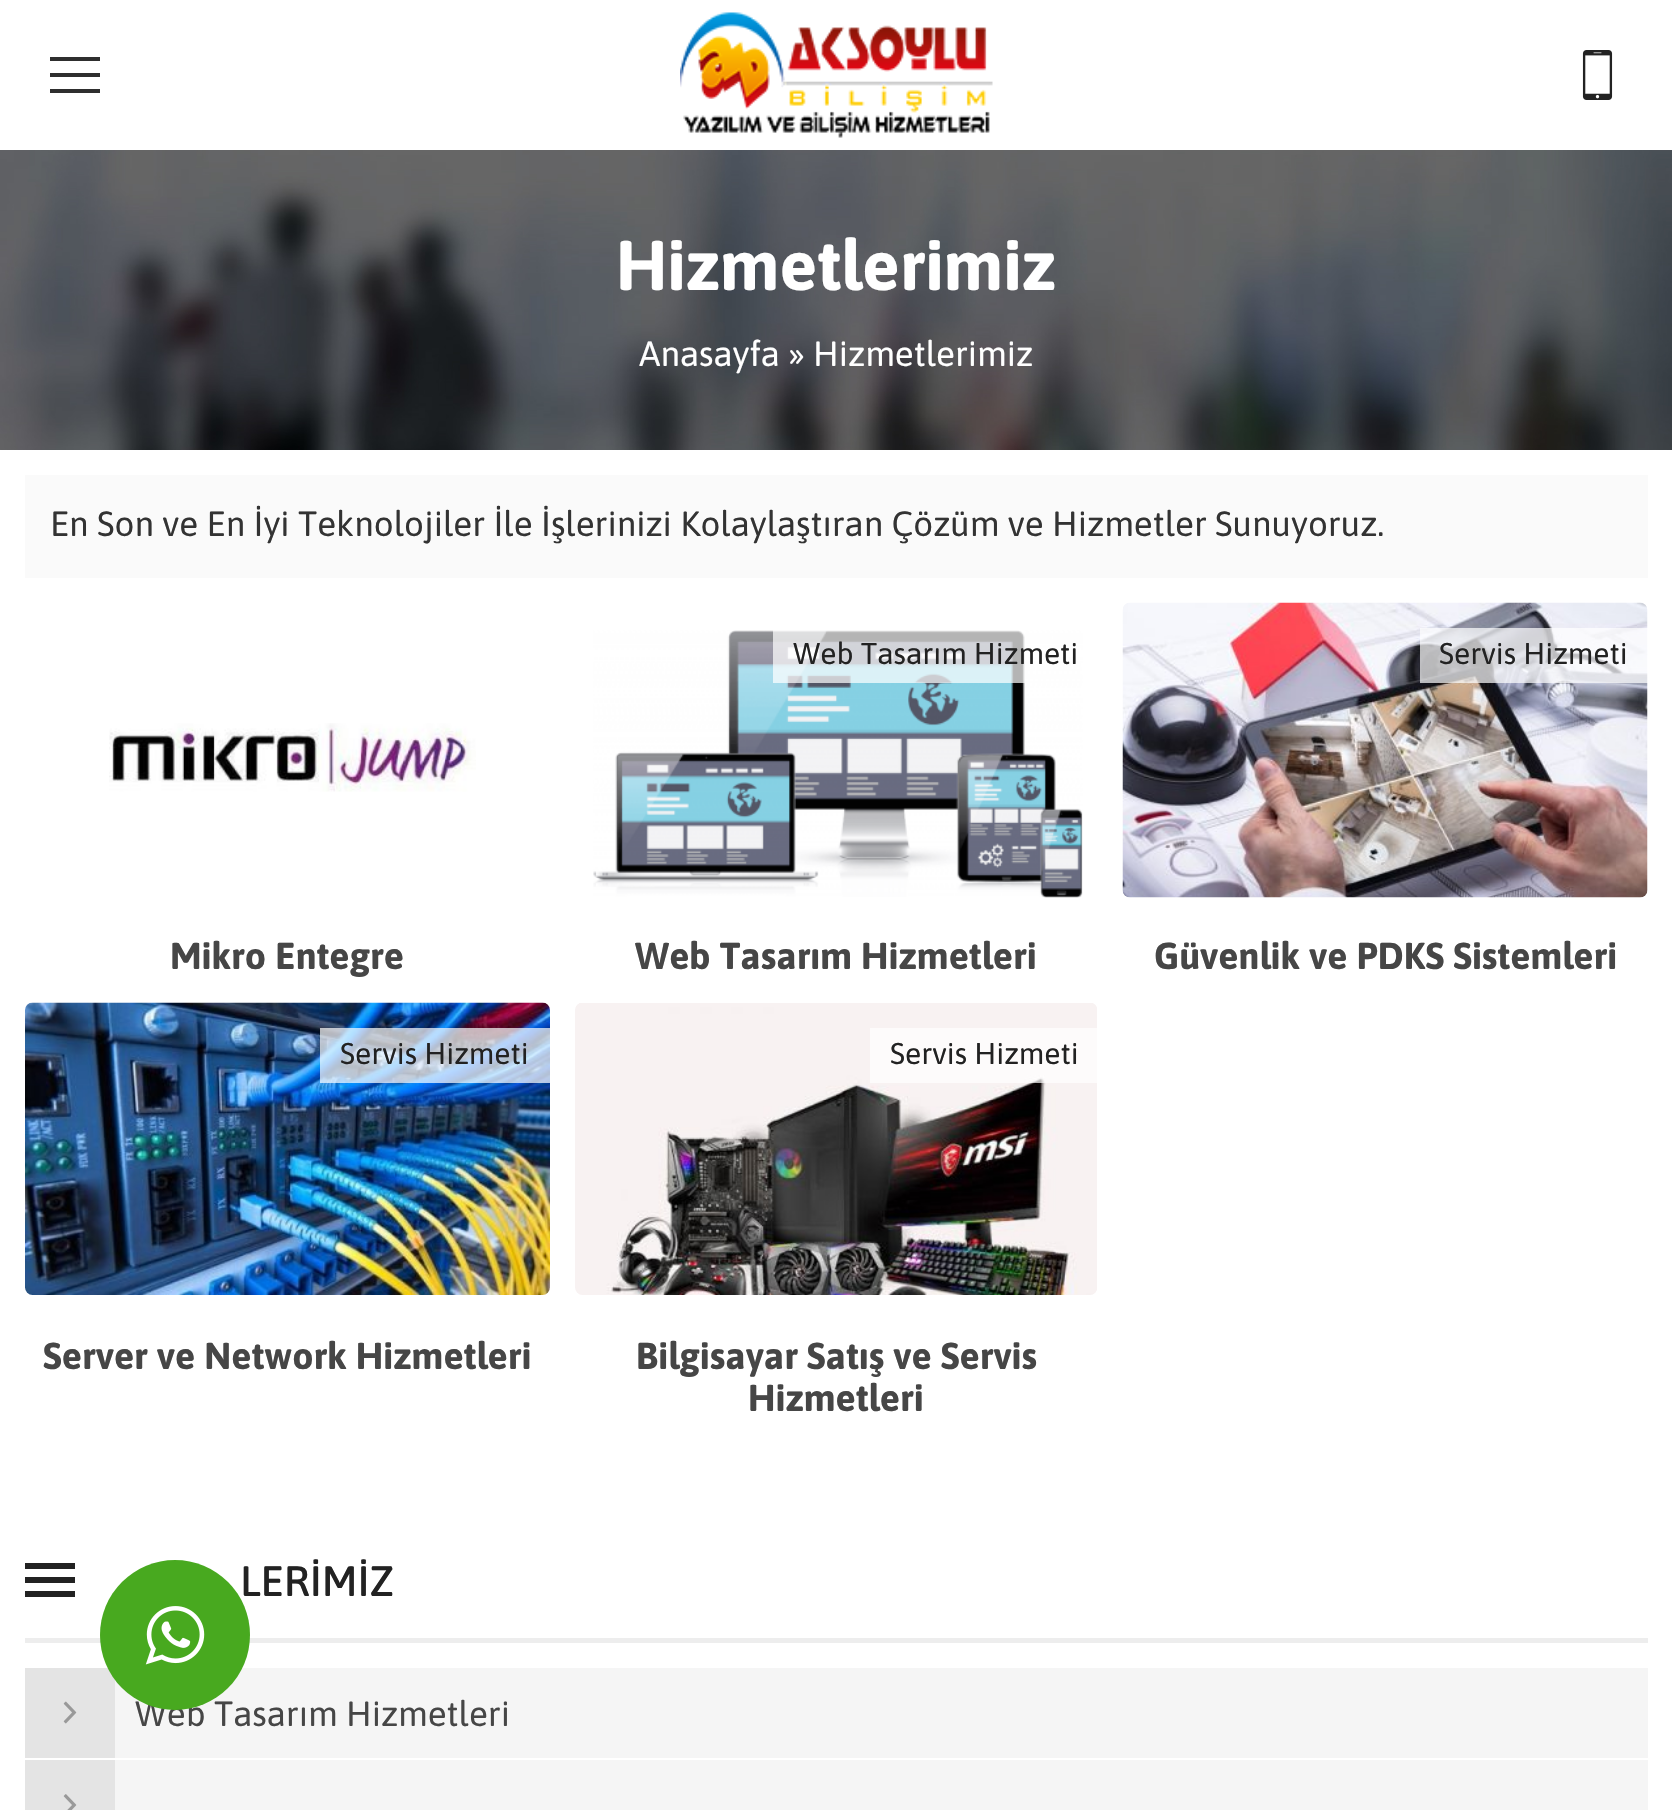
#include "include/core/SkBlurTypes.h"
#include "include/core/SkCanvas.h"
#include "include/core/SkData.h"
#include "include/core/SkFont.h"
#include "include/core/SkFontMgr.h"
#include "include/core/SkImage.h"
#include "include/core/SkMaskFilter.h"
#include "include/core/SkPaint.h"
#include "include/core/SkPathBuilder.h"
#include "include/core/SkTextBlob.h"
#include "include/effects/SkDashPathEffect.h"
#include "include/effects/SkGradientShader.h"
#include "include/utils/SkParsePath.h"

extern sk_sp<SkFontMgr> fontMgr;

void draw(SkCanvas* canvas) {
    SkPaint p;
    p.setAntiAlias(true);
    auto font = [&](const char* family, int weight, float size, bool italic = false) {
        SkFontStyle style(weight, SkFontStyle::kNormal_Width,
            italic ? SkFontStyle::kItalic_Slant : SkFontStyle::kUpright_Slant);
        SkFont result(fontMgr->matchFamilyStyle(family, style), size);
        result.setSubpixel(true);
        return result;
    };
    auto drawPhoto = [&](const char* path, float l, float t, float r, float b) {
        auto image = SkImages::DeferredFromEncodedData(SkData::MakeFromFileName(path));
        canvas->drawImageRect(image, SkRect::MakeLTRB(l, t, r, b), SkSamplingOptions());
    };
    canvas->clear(0xFFFFFFFF);
    p.setColor(0xFF2E2E2E);
    canvas->drawPath(SkPathBuilder().moveTo(50, 57).lineTo(50, 61).lineTo(100, 61).lineTo(100, 57).close().moveTo(50, 73).lineTo(50, 77).lineTo(100, 77).lineTo(100, 73).close().moveTo(50, 89).lineTo(50, 93).lineTo(100, 93).lineTo(100, 89).close().detach(), p);
    drawPhoto("media/1.png", 680, 12, 993, 138);
    drawPhoto("media/2.png", 1582, 50, 1613, 100);
    drawPhoto("media/3.png", 0, 150, 1672, 450);
    auto font1 = font("Asap", 700, 70);
    p.setColor(0xFFFFFFFF);
    canvas->drawString("Hizmetlerimiz", 616, 290, font1, p);
    auto font2 = font("Asap", 400, 35);
    canvas->drawString("Anasayfa » Hizmetlerimiz", 639, 366, font2, p);
    p.setColor(0xFFFAFAFA);
    canvas->drawRect(SkRect::MakeLTRB(25, 475, 1648, 578), p);
    p.setColor(0xFF333333);
    canvas->drawString("En Son ve En İyi Teknolojiler İle İşlerinizi Kolaylaştıran Çözüm ve Hizmetler Sunuyoruz.", 50, 536, font2, p);
    drawPhoto("media/4.png", 109, 723, 476, 792);
    auto font3 = font("Asap", 700, 37.5f);
    p.setColor(0xFF464646);
    canvas->drawString("Mikro Entegre", 170, 969, font3, p);
    drawPhoto("media/5.png", 593, 630, 1083, 898);
    p.setColor(0xB3FFFFFF);
    canvas->drawRect(SkRect::MakeLTRB(773, 630, 1025, 683), p);
    auto font4 = font("Asap", 400, 30);
    p.setColor(0xFF222222);
    canvas->drawString("Web Tasarım Hizmeti", 793, 664, font4, p);
    p.setColor(0xFF464646);
    canvas->drawString("Web Tasarım Hizmetleri", 635, 969, font3, p);
    drawPhoto("media/6.png", 1122, 602, 1648, 898);
    p.setColor(0xB3FFFFFF);
    canvas->drawRect(SkRect::MakeLTRB(1420, 628, 1648, 683), p);
    p.setColor(0xFF222222);
    canvas->drawString("Servis Hizmeti", 1439, 664, font4, p);
    p.setColor(0xFF464646);
    canvas->drawString("Güvenlik ve PDKS Sistemleri", 1154, 969, font3, p);
    drawPhoto("media/7.png", 25, 1002, 550, 1295);
    p.setColor(0xB3FFFFFF);
    canvas->drawRect(SkRect::MakeLTRB(320, 1028, 550, 1083), p);
    p.setColor(0xFF222222);
    canvas->drawString("Servis Hizmeti", 340, 1064, font4, p);
    p.setColor(0xFF464646);
    canvas->drawString("Server ve Network Hizmetleri", 43, 1369, font3, p);
    drawPhoto("media/8.png", 575, 1003, 1097, 1295);
    p.setColor(0xB3FFFFFF);
    canvas->drawRect(SkRect::MakeLTRB(870, 1028, 1097, 1083), p);
    p.setColor(0xFF222222);
    canvas->drawString("Servis Hizmeti", 890, 1064, font4, p);
    p.setColor(0xFF464646);
    canvas->drawString("Bilgisayar Satış ve Servis", 636, 1369, font3, p);
    canvas->drawString("Hizmetleri", 748, 1411, font3, p);
    p.setColor(0xFF222222);
    canvas->drawPath(SkPathBuilder().moveTo(25, 1597).lineTo(25, 1591).lineTo(75, 1591).lineTo(75, 1597).close().moveTo(25, 1583).lineTo(25, 1577).lineTo(75, 1577).lineTo(75, 1583).close().moveTo(25, 1563).lineTo(75, 1563).lineTo(75, 1569).lineTo(25, 1569).close().detach(), p);
    auto font5 = font("Asap", 500, 42.5f);
    canvas->drawString("LERİMİZ", 240, 1596, font5, p);
    {
        const struct { float l, t, r, b; SkColor color; } items[] = {
            {25, 1638, 1648, 1643, 0xFFEDEDED},
            {115, 1668, 1648, 1758, 0xFFF5F5F5},
            {25, 1668, 115, 1758, 0xFFE4E4E4},
        };
        for (auto [l, t, r, b, color] : items) {
            p.setColor(color);
            canvas->drawRect(SkRect::MakeLTRB(l, t, r, b), p);
        }
    }
    drawPhoto("media/9.png", 63, 1701, 77, 1724);
    p.setColor(0xFF464646);
    canvas->drawString("Web Tasarım Hizmetleri", 135, 1726, font2, p);
    p.setColor(0xFFF5F5F5);
    canvas->drawRect(SkRect::MakeLTRB(115, 1760, 1648, 1810), p);
    p.setColor(0xFFE4E4E4);
    canvas->drawRect(SkRect::MakeLTRB(25, 1760, 115, 1810), p);
    drawPhoto("media/10.png", 63, 1794, 77, 1810);
    p.setColor(0xFF48A91F);
    canvas->drawCircle(175, 1635, 75, p);
    drawPhoto("media/11.png", 145, 1606, 205, 1665);
}
